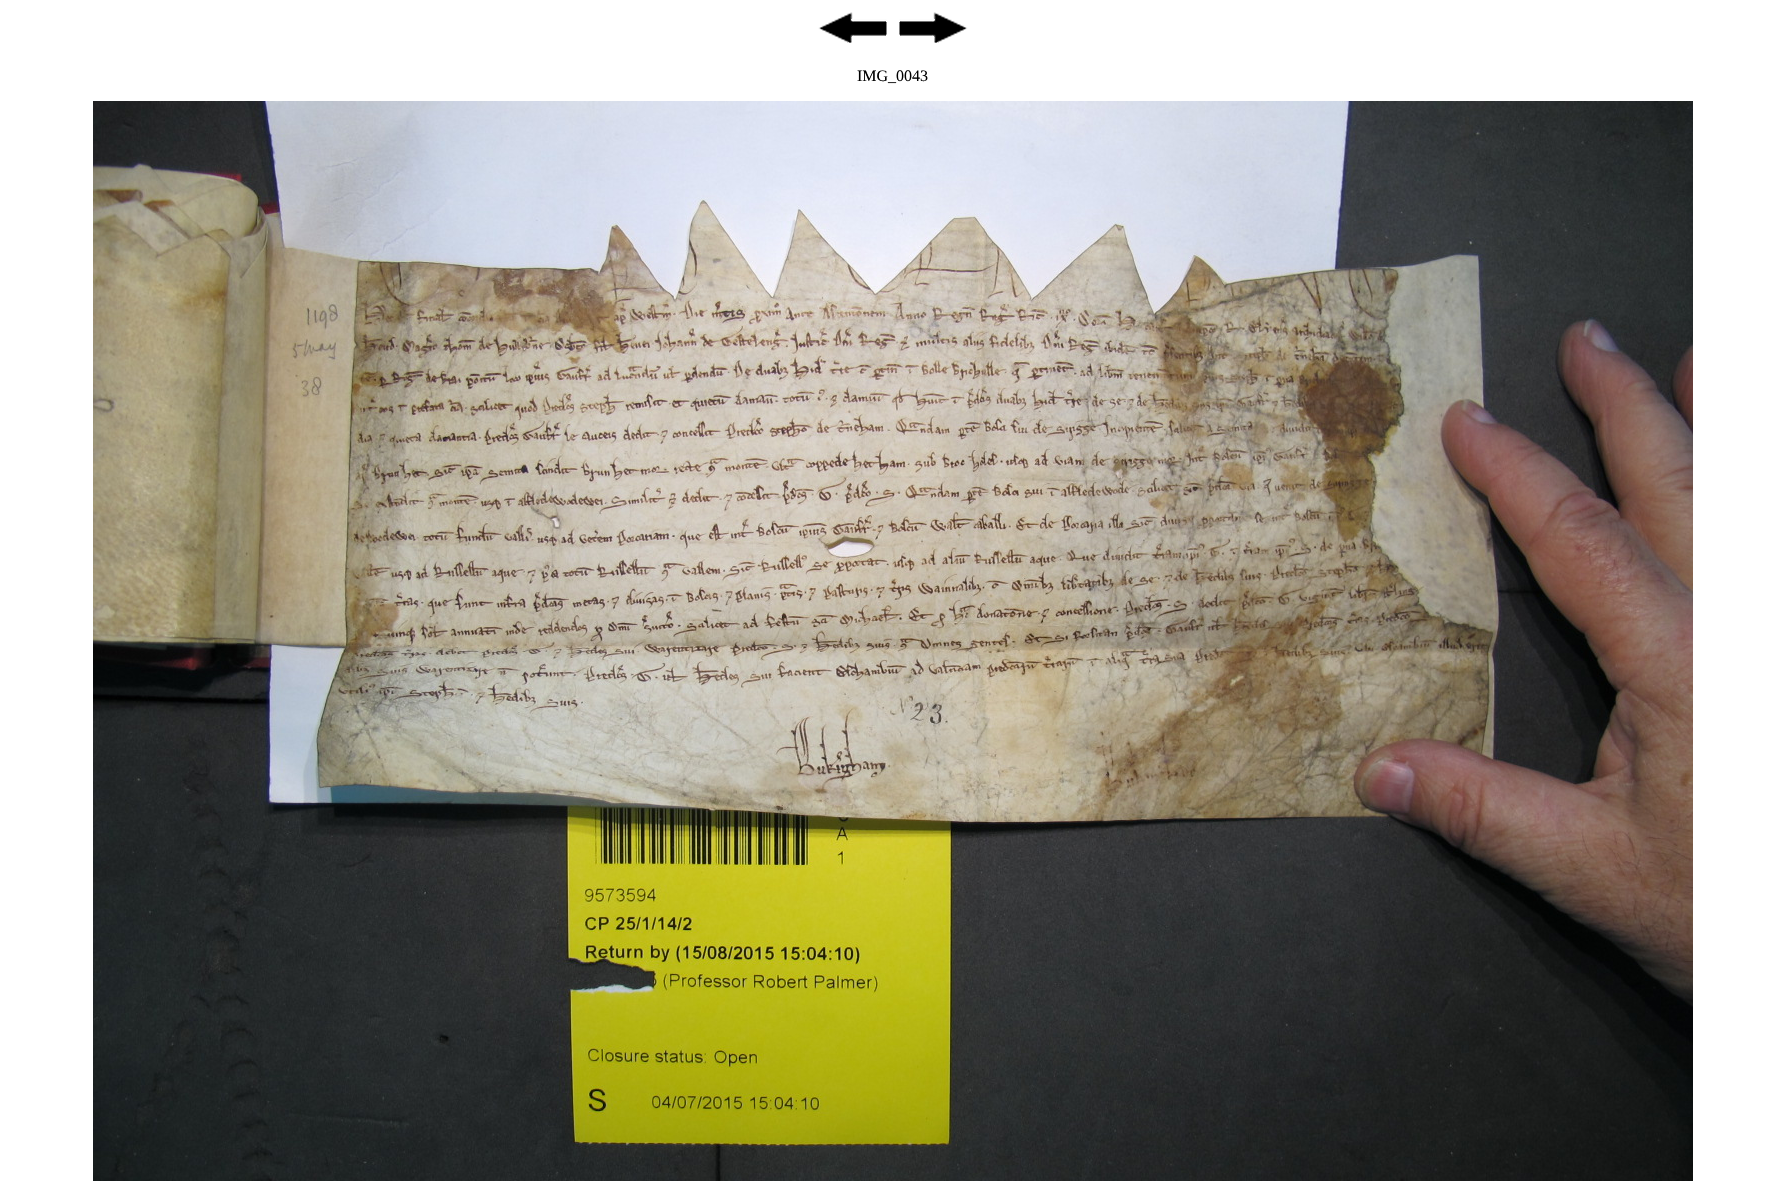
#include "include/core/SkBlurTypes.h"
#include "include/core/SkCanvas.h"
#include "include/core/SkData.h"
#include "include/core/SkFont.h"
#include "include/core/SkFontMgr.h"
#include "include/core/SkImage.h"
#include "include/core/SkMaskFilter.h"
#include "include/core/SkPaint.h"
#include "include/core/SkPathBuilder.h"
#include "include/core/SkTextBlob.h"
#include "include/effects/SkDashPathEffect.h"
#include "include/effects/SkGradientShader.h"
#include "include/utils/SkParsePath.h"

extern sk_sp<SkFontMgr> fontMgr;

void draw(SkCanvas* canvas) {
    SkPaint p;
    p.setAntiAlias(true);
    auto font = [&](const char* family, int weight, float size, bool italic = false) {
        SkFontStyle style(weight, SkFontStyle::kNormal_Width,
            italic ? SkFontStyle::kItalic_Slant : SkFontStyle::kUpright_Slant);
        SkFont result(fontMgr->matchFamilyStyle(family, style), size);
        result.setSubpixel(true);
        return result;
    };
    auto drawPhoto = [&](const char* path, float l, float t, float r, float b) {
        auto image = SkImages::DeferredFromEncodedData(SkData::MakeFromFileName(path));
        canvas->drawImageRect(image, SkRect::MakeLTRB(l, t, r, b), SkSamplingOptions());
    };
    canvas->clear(0xFFFFFFFF);
    drawPhoto("media/1.png", 818, 12, 887, 43);
    drawPhoto("media/2.png", 899, 12, 968, 43);
    auto font1 = font("Liberation Serif", 400, 16);
    p.setColor(0xFF000000);
    canvas->drawString("IMG_0043", 857, 81, font1, p);
    drawPhoto("media/3.png", 93, 101, 1693, 1181);
}
